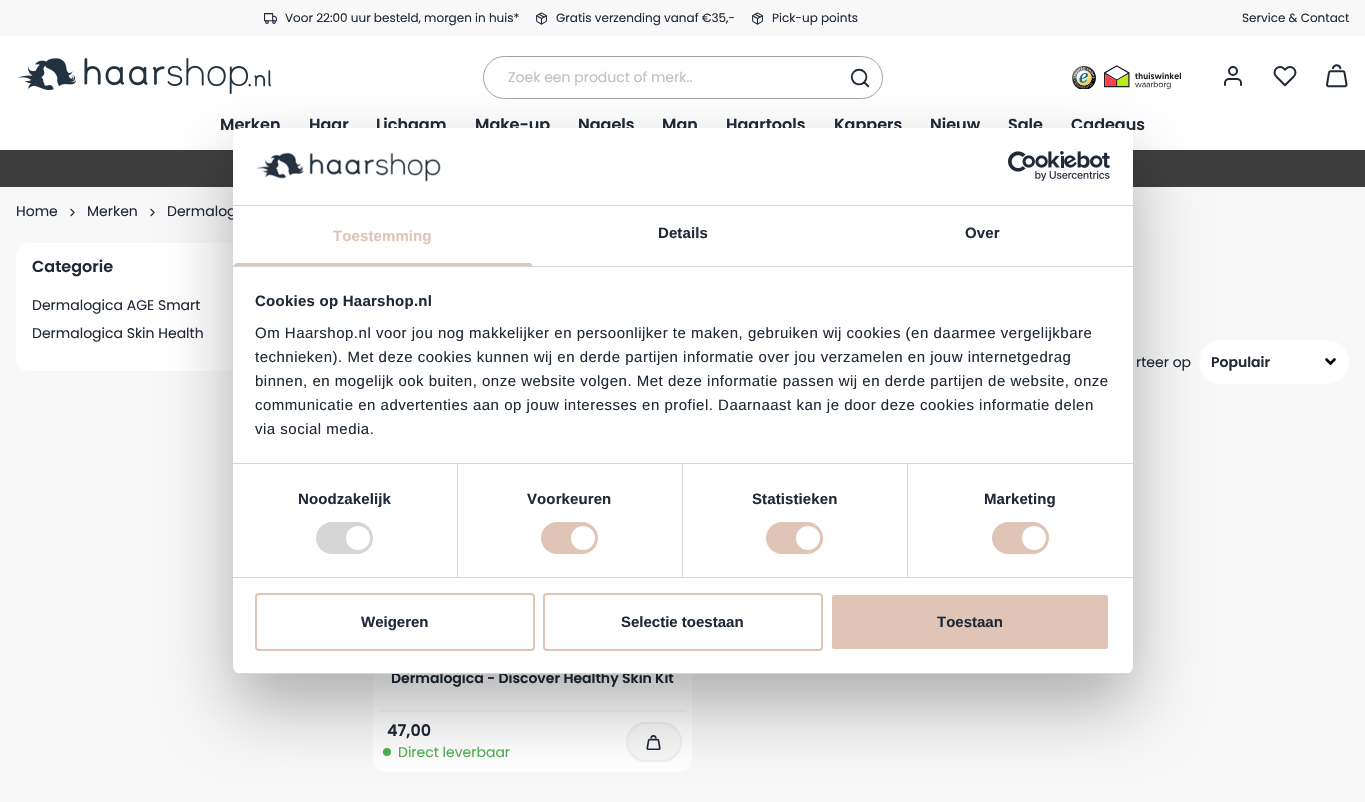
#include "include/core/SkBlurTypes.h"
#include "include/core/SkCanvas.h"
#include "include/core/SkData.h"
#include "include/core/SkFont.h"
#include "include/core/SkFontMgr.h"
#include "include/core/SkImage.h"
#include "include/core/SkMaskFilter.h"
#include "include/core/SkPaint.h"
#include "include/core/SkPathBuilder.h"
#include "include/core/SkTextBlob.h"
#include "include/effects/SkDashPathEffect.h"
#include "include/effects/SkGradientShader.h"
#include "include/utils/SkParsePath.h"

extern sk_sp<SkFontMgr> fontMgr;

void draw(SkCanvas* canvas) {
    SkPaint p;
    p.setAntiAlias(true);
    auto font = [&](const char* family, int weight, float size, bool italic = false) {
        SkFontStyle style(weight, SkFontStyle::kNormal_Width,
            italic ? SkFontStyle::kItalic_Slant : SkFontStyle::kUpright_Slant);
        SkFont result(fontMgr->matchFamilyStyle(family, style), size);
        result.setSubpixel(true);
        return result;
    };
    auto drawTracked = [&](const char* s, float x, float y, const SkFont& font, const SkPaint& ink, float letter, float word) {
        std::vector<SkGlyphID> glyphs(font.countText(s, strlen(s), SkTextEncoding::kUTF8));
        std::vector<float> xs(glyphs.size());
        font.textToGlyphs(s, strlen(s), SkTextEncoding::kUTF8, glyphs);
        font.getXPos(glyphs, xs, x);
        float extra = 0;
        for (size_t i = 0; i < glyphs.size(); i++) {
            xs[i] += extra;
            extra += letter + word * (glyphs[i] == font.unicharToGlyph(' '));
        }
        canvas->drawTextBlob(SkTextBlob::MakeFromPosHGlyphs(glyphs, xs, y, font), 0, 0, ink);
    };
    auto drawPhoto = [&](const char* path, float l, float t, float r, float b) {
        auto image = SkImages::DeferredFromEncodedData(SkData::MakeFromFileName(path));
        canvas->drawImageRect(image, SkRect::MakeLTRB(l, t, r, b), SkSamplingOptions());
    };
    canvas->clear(0xFFFFFFFF);
    p.setColor(0xFFF8F8F8);
    canvas->drawRect(SkRect::MakeLTRB(0, 0, 1365, 36), p);
    drawPhoto("media/1.png", 264, 13, 277, 24);
    auto font1 = font("Poppins", 400, 12);
    p.setColor(0xFF1F2937);
    canvas->drawString("Voor 22:00 uur besteld, morgen in huis*", 285, 22, font1, p);
    drawPhoto("media/2.png", 536, 12, 547, 25);
    canvas->drawString("Gratis verzending vanaf €35,-", 556, 22, font1, p);
    drawPhoto("media/3.png", 752, 12, 763, 25);
    canvas->drawString("Pick-up points", 772, 22, font1, p);
    canvas->drawString("Service & Contact", 1242, 22, font1, p);
    drawPhoto("media/4.png", 17, 58, 271, 94);
    p.setStyle(SkPaint::kStroke_Style);
    p.setStrokeWidth(1);
    p.setColor(0xFFA3A3A3);
    canvas->drawRoundRect(SkRect::MakeLTRB(483.5f, 56.5f, 882.5f, 98.5f), 21, 21, p);
    auto font2 = font("Poppins", 400, 14);
    p.setStyle(SkPaint::kFill_Style);
    p.setColor(0xFFC2C2C2);
    canvas->drawString("Zoek een product of merk..", 508, 82, font2, p);
    drawPhoto("media/5.png", 850, 68, 870, 88);
    drawPhoto("media/6.png", 1072, 66, 1096, 89);
    drawPhoto("media/7.png", 1104, 65, 1181, 89);
    drawPhoto("media/8.png", 1224, 66, 1242, 86);
    drawPhoto("media/9.png", 1273, 66, 1297, 87);
    drawPhoto("media/10.png", 1326, 64, 1348, 88);
    auto font3 = font("Poppins", 600, 16);
    p.setColor(0xFF1F2937);
    {
        const struct { const char* s; float x, y; } items[] = {
            {"Merken", 220, 130},
            {"Haar", 309, 130},
            {"Lichaam", 376, 130},
            {"Make-up", 475, 130},
            {"Nagels", 578, 130},
            {"Man", 662, 130},
            {"Haartools", 726, 130},
            {"Kappers", 834, 130},
            {"Nieuw", 930, 130},
            {"Sale", 1008, 130},
            {"Cadeaus", 1071, 130},
        };
        for (auto [s, x, y] : items) {
            canvas->drawString(s, x, y, font3, p);
        }
    }
    p.setColor(0xFF3E3E3E);
    canvas->drawRect(SkRect::MakeLTRB(0, 150, 1365, 187), p);
    p.setColor(0xFFF8F8F8);
    canvas->drawRect(SkRect::MakeLTRB(0, 187, 1365, 802), p);
    p.setColor(0xFF1F2937);
    canvas->drawString("Home", 16, 216, font2, p);
    drawPhoto("media/11.png", 70, 208, 75, 217);
    canvas->drawString("Merken", 87, 216, font2, p);
    drawPhoto("media/11.png", 150, 208, 155, 217);
    canvas->drawString("Dermalog", 167, 216, font2, p);
    p.setColor(0xFFFFFFFF);
    canvas->drawRoundRect(SkRect::MakeLTRB(16, 243, 341, 371), 12, 12, p);
    p.setColor(0xFF1F2937);
    canvas->drawString("Categorie", 32, 272, font3, p);
    {
        const struct { const char* s; float x, y; } items[] = {
            {"Dermalogica AGE Smart", 32, 310},
            {"Dermalogica Skin Health", 32, 338},
            {"rteer op", 1136, 367},
        };
        for (auto [s, x, y] : items) {
            canvas->drawString(s, x, y, font2, p);
        }
    }
    p.setColor(0xFFFFFFFF);
    canvas->drawRoundRect(SkRect::MakeLTRB(1199, 340, 1349, 384), 22, 22, p);
    p.setStyle(SkPaint::kStroke_Style);
    p.setStrokeWidth(2.6f);
    p.setStrokeCap(SkPaint::kRound_Cap);
    p.setStrokeJoin(SkPaint::kRound_Join);
    p.setColor(0xFF000000);
    canvas->drawPath(SkPathBuilder().moveTo(1326.5f, 359.5f).lineTo(1330.5f, 363.5f).lineTo(1334.5f, 359.5f).detach(), p);
    auto font4 = font("Poppins", 600, 14);
    p.setStyle(SkPaint::kFill_Style);
    p.setColor(0xFF1F2937);
    canvas->drawString("Populair", 1211, 367, font4, p);
    p.setColor(0xFFFFFFFF);
    canvas->drawRoundRect(SkRect::MakeLTRB(373, 392, 692, 772), 12, 12, p);
    p.setColor(0xFF1F2937);
    canvas->drawString("Dermalogica - Discover Healthy Skin Kit", 391, 683, font4, p);
    p.setColor(0xFFF8F8F8);
    canvas->drawRect(SkRect::MakeLTRB(379, 710, 686, 712), p);
    p.setColor(0xFF1F2937);
    canvas->drawString("47,00", 387, 736, font3, p);
    p.setColor(0xFF4DAF50);
    canvas->drawCircle(387, 752, 4, p);
    canvas->drawString("Direct leverbaar", 398, 757, font2, p);
    p.setColor(0xFFF8F8F8);
    canvas->drawRoundRect(SkRect::MakeLTRB(627, 723, 681, 761), 19, 19, p);
    p.setStyle(SkPaint::kStroke_Style);
    p.setStrokeWidth(2);
    p.setStrokeCap(SkPaint::kButt_Cap);
    p.setStrokeJoin(SkPaint::kMiter_Join);
    p.setColor(0xFFF0F0F0);
    canvas->drawRoundRect(SkRect::MakeLTRB(627, 723, 681, 761), 19, 19, p);
    drawPhoto("media/12.png", 646, 735, 661, 750);
    p.setStyle(SkPaint::kFill_Style);
    p.setColor(0x4D000000);
    p.setMaskFilter(SkMaskFilter::MakeBlur(kNormal_SkBlurStyle, 34));
    canvas->drawRoundRect(SkRect::MakeLTRB(233, 160, 1133, 706), 8, 8, p);
    p.setMaskFilter(nullptr);
    p.setColor(0xFFFFFFFF);
    canvas->drawRoundRect(SkRect::MakeLTRB(233, 128, 1133, 674), 8, 8, p);
    p.setColor(0xFFD6D6D6);
    canvas->drawRect(SkRect::MakeLTRB(233, 205, 1133, 206), p);
    drawPhoto("media/13.png", 257, 152, 441, 182);
    drawPhoto("media/14.png", 1008, 151, 1110, 181);
    canvas->drawRect(SkRect::MakeLTRB(233, 266, 1133, 267), p);
    p.setColor(0xFFE0C4B6);
    canvas->drawPath(SkPathBuilder().moveTo(533, 266).lineTo(233, 266).lineTo(236, 263).lineTo(530, 263).close().detach(), p);
    auto font5 = font("Liberation Sans", 700, 15);
    drawTracked("Toestemming", 333, 241, font5, p, 0.1f, 0);
    p.setColor(0xFF1F2937);
    drawTracked("Details", 658, 238, font5, p, 0.1f, 0);
    drawTracked("Over", 965, 238, font5, p, 0.1f, 0);
    p.setColor(0xFFD6D6D6);
    canvas->drawRect(SkRect::MakeLTRB(233, 463, 1133, 464), p);
    p.setColor(0xFF1F2937);
    drawTracked("Cookies op Haarshop.nl", 255, 306, font5, p, 0.25f, 0);
    auto font6 = font("Liberation Sans", 400, 15);
    {
        const struct { const char* s; float x, y; } items[] = {
            {"Om Haarshop.nl voor jou nog makkelijker en persoonlijker te maken, gebruiken wij cookies (en daarmee vergelijkbare", 255, 338},
            {"technieken). Met deze cookies kunnen wij en derde partijen informatie over jou verzamelen en jouw internetgedrag", 255, 362},
            {"binnen, en mogelijk ook buiten, onze website volgen. Met deze informatie passen wij en derde partijen de website, onze", 255, 386},
            {"communicatie en advertenties aan op jouw interesses en profiel. Daarnaast kan je door deze cookies informatie delen", 255, 410},
            {"via social media.", 255, 434},
        };
        for (auto [s, x, y] : items) {
            drawTracked(s, x, y, font6, p, 0.5f, 0);
        }
    }
    p.setColor(0xFFD6D6D6);
    canvas->drawRect(SkRect::MakeLTRB(233, 577, 1133, 578), p);
    canvas->drawRect(SkRect::MakeLTRB(457, 464, 458, 577), p);
    p.setColor(0xFF1F2937);
    drawTracked("Noodzakelijk", 298, 504, font5, p, 0.1f, 0);
    p.setColor(0xFFD6D6D6);
    canvas->drawRoundRect(SkRect::MakeLTRB(316, 522, 373, 554), 16, 16, p);
    p.setColor(0xFFFFFFFF);
    canvas->drawCircle(358, 538, 12, p);
    p.setColor(0xFFD6D6D6);
    canvas->drawRect(SkRect::MakeLTRB(682, 464, 683, 577), p);
    p.setColor(0xFF1F2937);
    drawTracked("Voorkeuren", 527, 504, font5, p, 0.1f, 0);
    p.setColor(0xFFE0C4B6);
    canvas->drawRoundRect(SkRect::MakeLTRB(541, 522, 598, 554), 16, 16, p);
    p.setColor(0xFFFFFFFF);
    canvas->drawCircle(583, 538, 12, p);
    p.setColor(0xFFD6D6D6);
    canvas->drawRect(SkRect::MakeLTRB(907, 464, 908, 577), p);
    p.setColor(0xFF1F2937);
    drawTracked("Statistieken", 752, 504, font5, p, 0.1f, 0);
    p.setColor(0xFFE0C4B6);
    canvas->drawRoundRect(SkRect::MakeLTRB(766, 522, 823, 554), 16, 16, p);
    p.setColor(0xFFFFFFFF);
    canvas->drawCircle(808, 538, 12, p);
    p.setColor(0xFF1F2937);
    drawTracked("Marketing", 984, 504, font5, p, 0.1f, 0);
    p.setColor(0xFFE0C4B6);
    canvas->drawRoundRect(SkRect::MakeLTRB(992, 522, 1049, 554), 16, 16, p);
    p.setColor(0xFFFFFFFF);
    canvas->drawCircle(1034, 538, 12, p);
    canvas->save();
    canvas->clipPath(SkPathBuilder().moveTo(241, 128).lineTo(1125, 128).cubicTo(1129.5f, 128, 1133, 131.5f, 1133, 136).lineTo(1133, 666).cubicTo(1133, 670.5f, 1129.5f, 674, 1125, 674).lineTo(241, 674).cubicTo(236.5f, 674, 233, 670.5f, 233, 666).lineTo(233, 136).cubicTo(233, 131.5f, 236.5f, 128, 241, 128).close().detach(), true);
    p.setColor(0xFFD6D6D6);
    canvas->drawRect(SkRect::MakeLTRB(233, 673, 1133, 674), p);
    canvas->restore();
    p.setStyle(SkPaint::kStroke_Style);
    p.setColor(0xFFE0C4B6);
    canvas->drawRoundRect(SkRect::MakeLTRB(256, 594, 534, 650), 3, 3, p);
    p.setStyle(SkPaint::kFill_Style);
    p.setColor(0xFF1F2937);
    canvas->drawString("Weigeren", 361, 627, font5, p);
    p.setStyle(SkPaint::kStroke_Style);
    p.setColor(0xFFE0C4B6);
    canvas->drawRoundRect(SkRect::MakeLTRB(544, 594, 822, 650), 3, 3, p);
    p.setStyle(SkPaint::kFill_Style);
    p.setColor(0xFF1F2937);
    canvas->drawString("Selectie toestaan", 621, 627, font5, p);
    p.setColor(0xFFE0C4B6);
    canvas->drawRoundRect(SkRect::MakeLTRB(831, 594, 1109, 650), 3, 3, p);
    p.setStyle(SkPaint::kStroke_Style);
    p.setColor(0xFFFFFFFF);
    canvas->drawRoundRect(SkRect::MakeLTRB(831, 594, 1109, 650), 3, 3, p);
    p.setStyle(SkPaint::kFill_Style);
    p.setColor(0xFF1F2937);
    canvas->drawString("Toestaan", 937, 627, font5, p);
}
